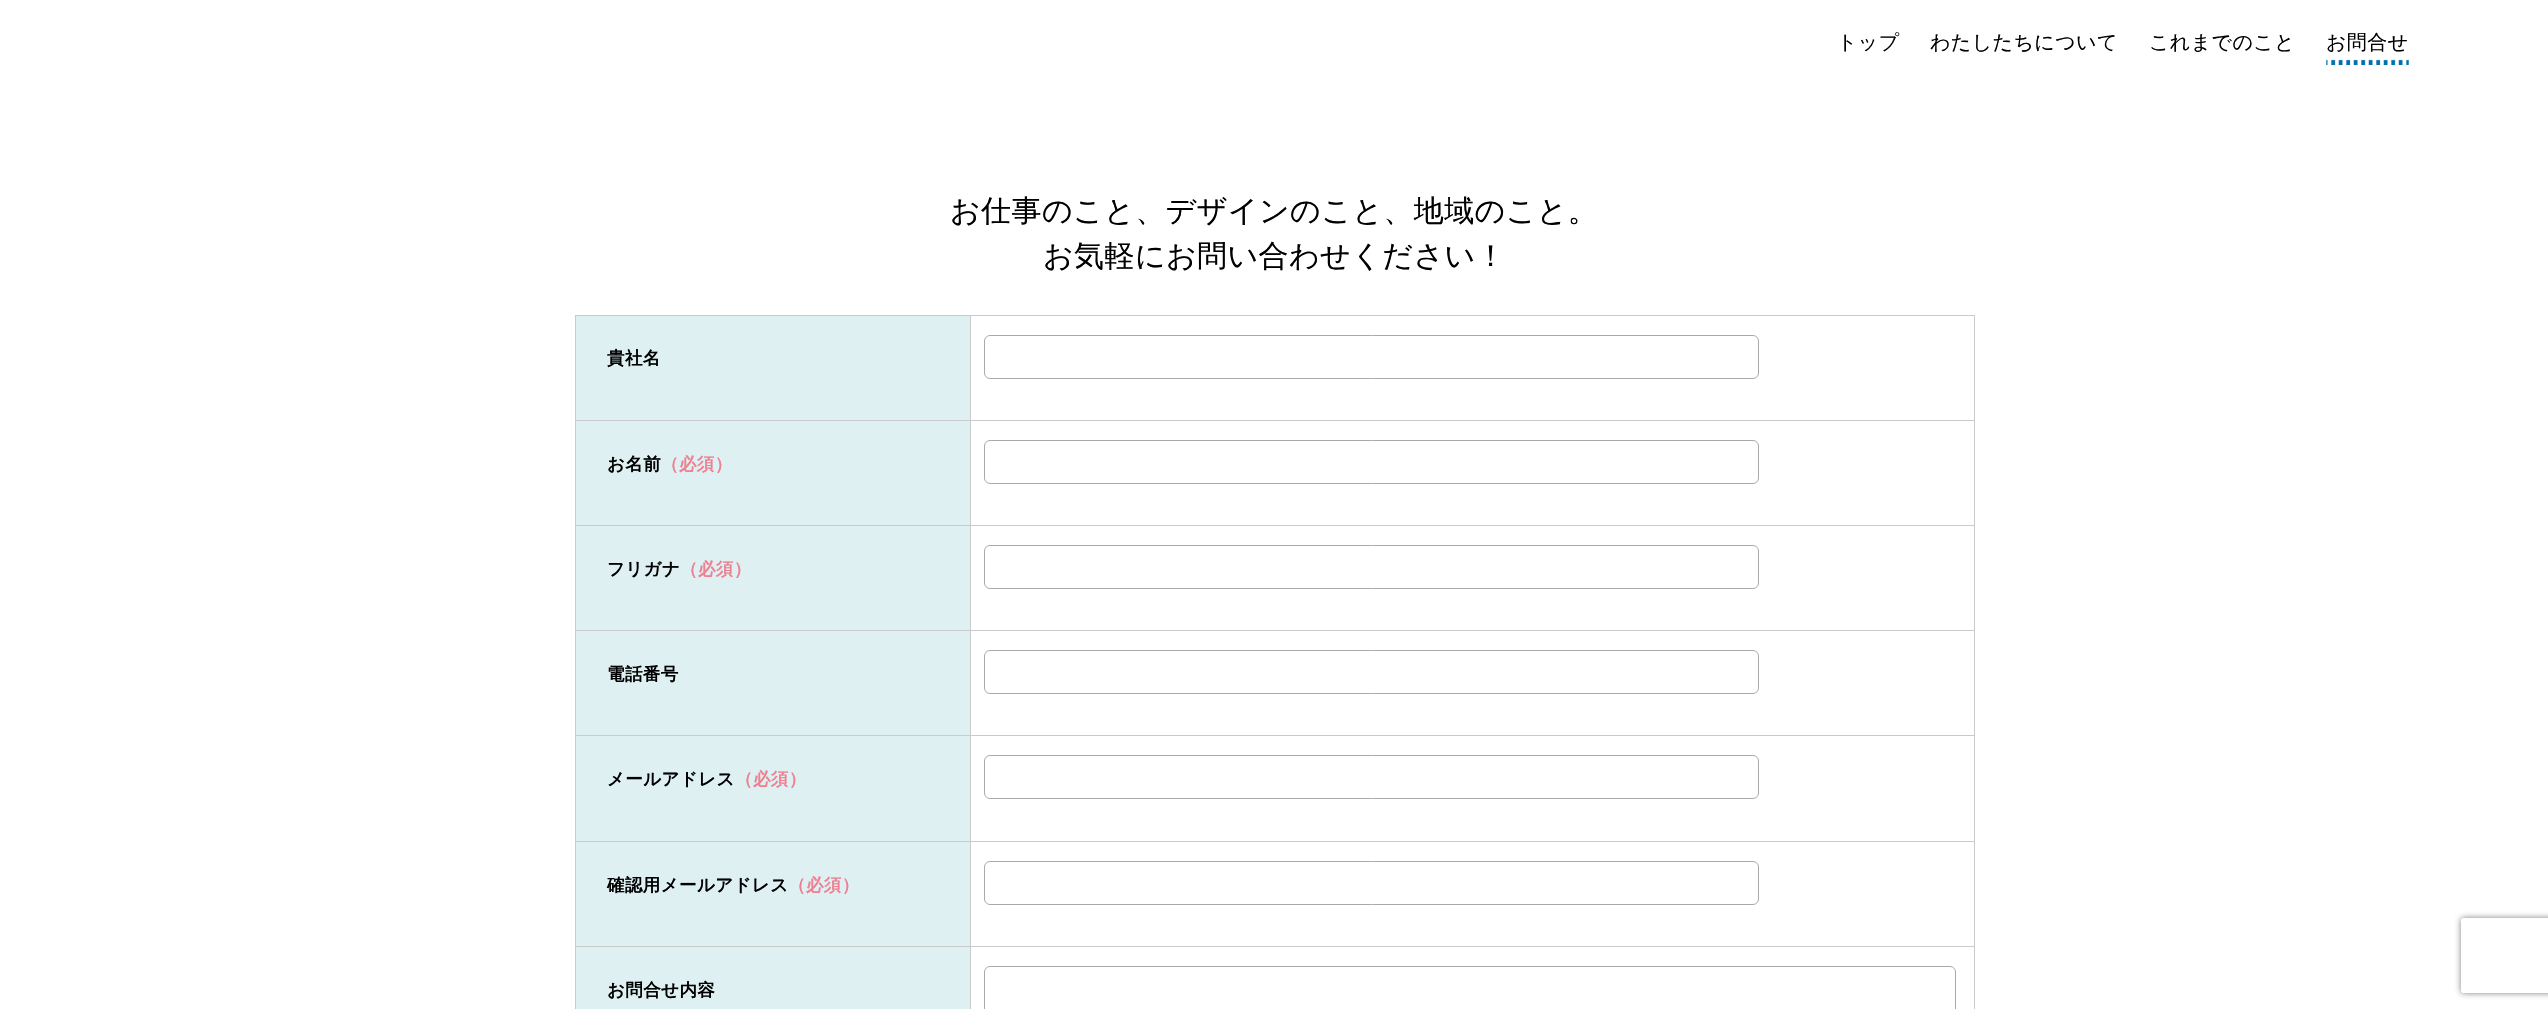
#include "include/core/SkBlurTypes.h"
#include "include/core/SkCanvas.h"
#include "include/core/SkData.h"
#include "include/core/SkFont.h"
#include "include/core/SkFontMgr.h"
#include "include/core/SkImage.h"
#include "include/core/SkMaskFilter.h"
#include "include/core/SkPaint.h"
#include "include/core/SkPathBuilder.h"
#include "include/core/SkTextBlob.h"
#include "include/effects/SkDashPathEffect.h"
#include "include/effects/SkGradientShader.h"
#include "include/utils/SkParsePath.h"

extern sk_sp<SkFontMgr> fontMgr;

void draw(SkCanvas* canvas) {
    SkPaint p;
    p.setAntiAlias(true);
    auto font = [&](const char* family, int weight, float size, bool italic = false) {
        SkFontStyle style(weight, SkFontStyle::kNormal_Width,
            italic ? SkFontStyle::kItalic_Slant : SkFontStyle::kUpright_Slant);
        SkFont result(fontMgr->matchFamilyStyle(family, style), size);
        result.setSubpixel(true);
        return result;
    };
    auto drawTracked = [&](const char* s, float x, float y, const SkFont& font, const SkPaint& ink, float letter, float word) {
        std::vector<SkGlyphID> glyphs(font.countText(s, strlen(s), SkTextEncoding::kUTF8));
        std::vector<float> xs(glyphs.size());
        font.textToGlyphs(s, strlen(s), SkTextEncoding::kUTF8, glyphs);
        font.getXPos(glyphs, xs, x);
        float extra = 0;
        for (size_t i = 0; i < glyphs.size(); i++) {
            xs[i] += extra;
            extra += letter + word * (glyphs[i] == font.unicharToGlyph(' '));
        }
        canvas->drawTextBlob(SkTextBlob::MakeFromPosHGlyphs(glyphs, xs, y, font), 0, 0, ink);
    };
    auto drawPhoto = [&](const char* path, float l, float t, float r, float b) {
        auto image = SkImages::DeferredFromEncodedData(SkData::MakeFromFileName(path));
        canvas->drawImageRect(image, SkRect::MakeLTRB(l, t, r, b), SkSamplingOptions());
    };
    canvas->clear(0xFFFFFFFF);
    auto font1 = font("WenQuanYi Zen Hei", 500, 20);
    p.setColor(0xFF000000);
    {
        const struct { const char* s; float x, y; } items[] = {
            {"トップ", 1837, 49},
            {"わたしたちについて", 1930, 49},
            {"これまでのこと", 2149, 49},
        };
        for (auto [s, x, y] : items) {
            drawTracked(s, x, y, font1, p, 0.4f, 0);
        }
    }
    drawPhoto("media/1.png", 2326, 59, 2409, 65);
    drawTracked("お問合せ", 2326, 49, font1, p, 0.4f, 0);
    auto font2 = font("WenQuanYi Zen Hei", 500, 30);
    drawTracked("お仕事のこと、デザインのこと、地域のこと。", 950, 221, font2, p, 0.4f, 0);
    drawTracked("お気軽にお問い合わせください！", 1043, 266, font2, p, 0.4f, 0);
    {
        const struct { float l, t, r, b; SkColor color; } items[] = {
            {576, 316, 970, 420, 0xFFDEF0F2},
            {970, 315, 1975, 316, 0xFFCACACA},
            {970, 420, 1975, 421, 0xFFCACACA},
            {970, 525, 1975, 526, 0xFFCACACA},
            {970, 630, 1975, 631, 0xFFCACACA},
            {970, 735, 1975, 736, 0xFFCACACA},
            {970, 841, 1975, 842, 0xFFCACACA},
            {970, 946, 1975, 947, 0xFFCACACA},
            {970, 946, 971, 1009, 0xFFCACACA},
            {575, 946, 971, 947, 0xFFCACACA},
            {970, 841, 971, 948, 0xFFCACACA},
            {575, 841, 971, 842, 0xFFCACACA},
            {970, 735, 971, 843, 0xFFCACACA},
            {575, 735, 971, 736, 0xFFCACACA},
            {970, 630, 971, 736, 0xFFCACACA},
            {575, 630, 971, 631, 0xFFCACACA},
            {970, 525, 971, 631, 0xFFCACACA},
            {575, 525, 971, 526, 0xFFCACACA},
            {970, 420, 971, 526, 0xFFCACACA},
            {575, 420, 971, 421, 0xFFCACACA},
            {970, 315, 971, 421, 0xFFCACACA},
            {575, 315, 971, 316, 0xFFCACACA},
            {575, 946, 576, 1009, 0xFFCACACA},
            {575, 841, 576, 948, 0xFFCACACA},
            {575, 735, 576, 843, 0xFFCACACA},
            {575, 630, 576, 736, 0xFFCACACA},
            {575, 525, 576, 631, 0xFFCACACA},
            {575, 420, 576, 526, 0xFFCACACA},
            {575, 315, 576, 421, 0xFFCACACA},
        };
        for (auto [l, t, r, b, color] : items) {
            p.setColor(color);
            canvas->drawRect(SkRect::MakeLTRB(l, t, r, b), p);
        }
    }
    auto font3 = font("WenQuanYi Zen Hei", 700, 17.5f);
    p.setColor(0xFF000000);
    drawTracked("貴社名", 607, 364, font3, p, 0.4f, 0);
    {
        const struct { float l, t, r, b; SkColor color; } items[] = {
            {1974, 946, 1975, 1009, 0xFFCACACA},
            {1974, 841, 1975, 948, 0xFFCACACA},
            {1974, 735, 1975, 843, 0xFFCACACA},
            {1974, 630, 1975, 736, 0xFFCACACA},
            {1974, 525, 1975, 631, 0xFFCACACA},
            {1974, 420, 1975, 526, 0xFFCACACA},
            {1974, 315, 1975, 421, 0xFFCACACA},
        };
        for (auto [l, t, r, b, color] : items) {
            p.setColor(color);
            canvas->drawRect(SkRect::MakeLTRB(l, t, r, b), p);
        }
    }
    p.setStyle(SkPaint::kStroke_Style);
    p.setStrokeWidth(1);
    p.setColor(0xFFAAAAAA);
    canvas->drawRoundRect(SkRect::MakeLTRB(984.5f, 335.5f, 1758.5f, 378.5f), 5.5f, 5.5f, p);
    p.setStyle(SkPaint::kFill_Style);
    p.setColor(0xFFDEF0F2);
    canvas->drawRect(SkRect::MakeLTRB(576, 421, 970, 525), p);
    p.setColor(0xFF000000);
    drawTracked("お名前", 607, 470, font3, p, 0.4f, 0);
    p.setColor(0xFFEE8091);
    drawTracked("（必須）", 661, 470, font3, p, 0.4f, 0);
    p.setStyle(SkPaint::kStroke_Style);
    p.setColor(0xFFAAAAAA);
    canvas->drawRoundRect(SkRect::MakeLTRB(984.5f, 440.5f, 1758.5f, 483.5f), 5.5f, 5.5f, p);
    p.setStyle(SkPaint::kFill_Style);
    p.setColor(0xFFDEF0F2);
    canvas->drawRect(SkRect::MakeLTRB(576, 526, 970, 630), p);
    p.setColor(0xFF000000);
    drawTracked("フリガナ", 607, 575, font3, p, 0.4f, 0);
    p.setColor(0xFFEE8091);
    drawTracked("（必須）", 680, 575, font3, p, 0.4f, 0);
    p.setStyle(SkPaint::kStroke_Style);
    p.setColor(0xFFAAAAAA);
    canvas->drawRoundRect(SkRect::MakeLTRB(984.5f, 545.5f, 1758.5f, 588.5f), 5.5f, 5.5f, p);
    p.setStyle(SkPaint::kFill_Style);
    p.setColor(0xFFDEF0F2);
    canvas->drawRect(SkRect::MakeLTRB(576, 631, 970, 735), p);
    p.setColor(0xFF000000);
    drawTracked("電話番号", 607, 680, font3, p, 0.4f, 0);
    p.setStyle(SkPaint::kStroke_Style);
    p.setColor(0xFFAAAAAA);
    canvas->drawRoundRect(SkRect::MakeLTRB(984.5f, 650.5f, 1758.5f, 693.5f), 5.5f, 5.5f, p);
    p.setStyle(SkPaint::kFill_Style);
    p.setColor(0xFFDEF0F2);
    canvas->drawRect(SkRect::MakeLTRB(576, 736, 970, 841), p);
    p.setColor(0xFF000000);
    drawTracked("メールアドレス", 607, 785, font3, p, 0.4f, 0);
    p.setColor(0xFFEE8091);
    drawTracked("（必須）", 735, 785, font3, p, 0.4f, 0);
    p.setStyle(SkPaint::kStroke_Style);
    p.setColor(0xFFAAAAAA);
    canvas->drawRoundRect(SkRect::MakeLTRB(984.5f, 755.5f, 1758.5f, 798.5f), 5.5f, 5.5f, p);
    p.setStyle(SkPaint::kFill_Style);
    p.setColor(0xFFDEF0F2);
    canvas->drawRect(SkRect::MakeLTRB(576, 842, 970, 946), p);
    p.setColor(0xFF000000);
    drawTracked("確認用メールアドレス", 607, 891, font3, p, 0.4f, 0);
    p.setColor(0xFFEE8091);
    drawTracked("（必須）", 788, 891, font3, p, 0.4f, 0);
    p.setStyle(SkPaint::kStroke_Style);
    p.setColor(0xFFAAAAAA);
    canvas->drawRoundRect(SkRect::MakeLTRB(984.5f, 861.5f, 1758.5f, 904.5f), 5.5f, 5.5f, p);
    p.setStyle(SkPaint::kFill_Style);
    p.setColor(0xFFDEF0F2);
    canvas->drawRect(SkRect::MakeLTRB(576, 947, 970, 1009), p);
    p.setColor(0xFF000000);
    drawTracked("お問合せ内容", 607, 996, font3, p, 0.4f, 0);
    p.setStyle(SkPaint::kStroke_Style);
    p.setColor(0xFFAAAAAA);
    canvas->drawRoundRect(SkRect::MakeLTRB(984.5f, 966.5f, 1955.5f, 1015.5f), 5.5f, 5.5f, p);
    canvas->save();
    canvas->clipPath(SkPathBuilder(SkPathFillType::kEvenOdd).moveTo(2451, 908).lineTo(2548, 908).lineTo(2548, 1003).lineTo(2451, 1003).close().moveTo(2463.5f, 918).lineTo(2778.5f, 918).cubicTo(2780, 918, 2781, 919, 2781, 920.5f).lineTo(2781, 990.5f).cubicTo(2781, 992, 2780, 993, 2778.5f, 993).lineTo(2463.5f, 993).cubicTo(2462, 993, 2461, 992, 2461, 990.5f).lineTo(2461, 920.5f).cubicTo(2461, 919, 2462, 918, 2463.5f, 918).close().detach(), true);
    p.setStyle(SkPaint::kFill_Style);
    p.setColor(0xFF808080);
    p.setMaskFilter(SkMaskFilter::MakeBlur(kNormal_SkBlurStyle, 3));
    canvas->drawRoundRect(SkRect::MakeLTRB(2461, 918, 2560, 993), 2.5f, 2.5f, p);
    p.setMaskFilter(nullptr);
    canvas->restore();
}
